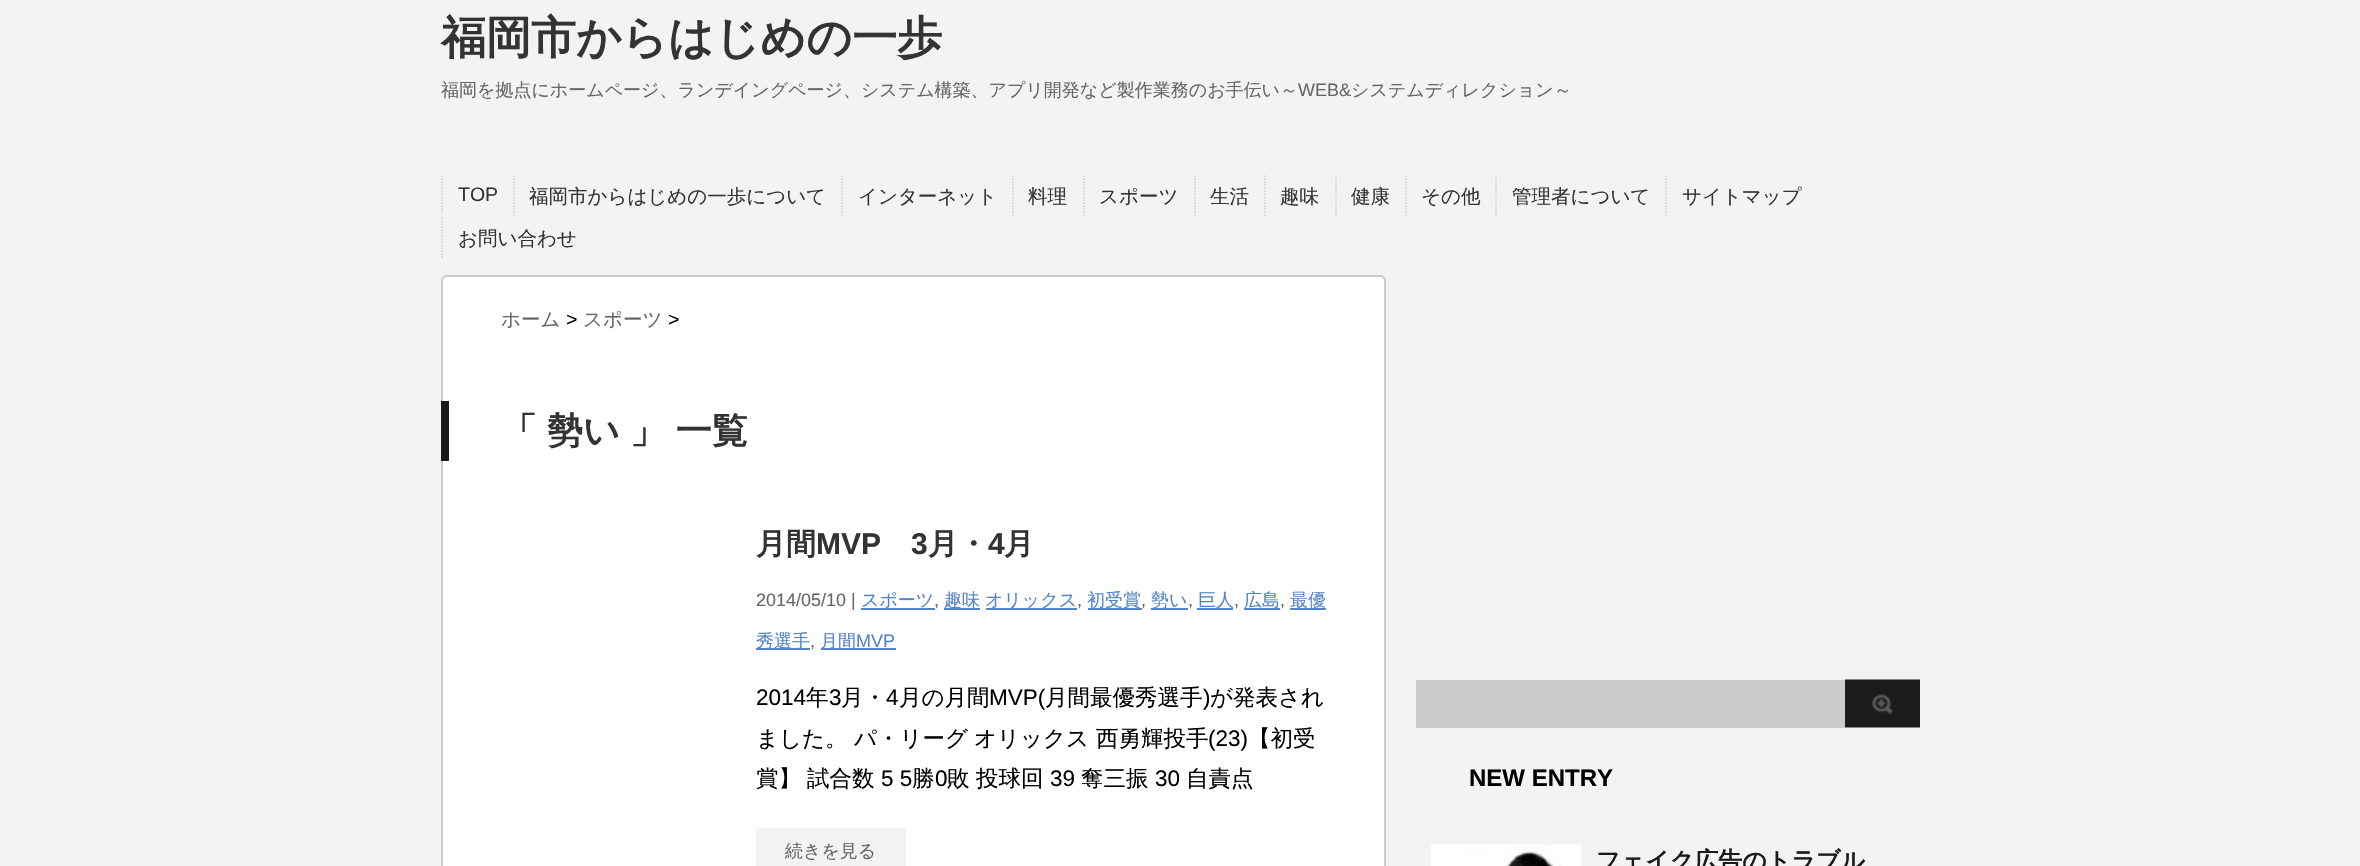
#include "include/core/SkBlurTypes.h"
#include "include/core/SkCanvas.h"
#include "include/core/SkData.h"
#include "include/core/SkFont.h"
#include "include/core/SkFontMgr.h"
#include "include/core/SkImage.h"
#include "include/core/SkMaskFilter.h"
#include "include/core/SkPaint.h"
#include "include/core/SkPathBuilder.h"
#include "include/core/SkTextBlob.h"
#include "include/effects/SkDashPathEffect.h"
#include "include/effects/SkGradientShader.h"
#include "include/utils/SkParsePath.h"

extern sk_sp<SkFontMgr> fontMgr;

void draw(SkCanvas* canvas) {
    SkPaint p;
    p.setAntiAlias(true);
    auto font = [&](const char* family, int weight, float size, bool italic = false) {
        SkFontStyle style(weight, SkFontStyle::kNormal_Width,
            italic ? SkFontStyle::kItalic_Slant : SkFontStyle::kUpright_Slant);
        SkFont result(fontMgr->matchFamilyStyle(family, style), size);
        result.setSubpixel(true);
        return result;
    };
    auto drawTracked = [&](const char* s, float x, float y, const SkFont& font, const SkPaint& ink, float letter, float word) {
        std::vector<SkGlyphID> glyphs(font.countText(s, strlen(s), SkTextEncoding::kUTF8));
        std::vector<float> xs(glyphs.size());
        font.textToGlyphs(s, strlen(s), SkTextEncoding::kUTF8, glyphs);
        font.getXPos(glyphs, xs, x);
        float extra = 0;
        for (size_t i = 0; i < glyphs.size(); i++) {
            xs[i] += extra;
            extra += letter + word * (glyphs[i] == font.unicharToGlyph(' '));
        }
        canvas->drawTextBlob(SkTextBlob::MakeFromPosHGlyphs(glyphs, xs, y, font), 0, 0, ink);
    };
    auto drawPhoto = [&](const char* path, float l, float t, float r, float b) {
        auto image = SkImages::DeferredFromEncodedData(SkData::MakeFromFileName(path));
        canvas->drawImageRect(image, SkRect::MakeLTRB(l, t, r, b), SkSamplingOptions());
    };
    canvas->clear(0xFFF3F3F3);
    auto font1 = font("WenQuanYi Zen Hei", 700, 45);
    p.setColor(0xFF333333);
    canvas->drawString("福岡市からはじめの一歩", 441, 53, font1, p);
    auto font2 = font("WenQuanYi Zen Hei", 500, 18);
    p.setColor(0xFF666666);
    canvas->drawString("福岡を拠点にホームページ、ランデイングページ、システム構築、アプリ開発など製作業務のお手伝い～", 441, 96, font2, p);
    auto font3 = font("Liberation Sans", 400, 18);
    canvas->drawString("WEB&", 1298, 96, font3, p);
    canvas->drawString("システムディレクション～", 1351, 96, font2, p);
    p.setStyle(SkPaint::kStroke_Style);
    p.setStrokeWidth(1.5f);
    p.setColor(0xFFCCCCCC);
    p.setPathEffect(SkDashPathEffect::Make({{1.5f, 1.5f}}, 0));
    canvas->drawPath(SkPathBuilder().moveTo(514, 175.5f).lineTo(514, 217.5f).detach(), p);
    p.setPathEffect(nullptr);
    auto font4 = font("WenQuanYi Zen Hei", 500, 19.5f);
    p.setStyle(SkPaint::kFill_Style);
    p.setColor(0xFF333333);
    canvas->drawString("福岡市からはじめの一歩について", 529, 203, font4, p);
    p.setStyle(SkPaint::kStroke_Style);
    p.setColor(0xFFCCCCCC);
    p.setPathEffect(SkDashPathEffect::Make({{1.5f, 1.5f}}, 0));
    canvas->drawPath(SkPathBuilder().moveTo(842, 175.5f).lineTo(842, 217.5f).detach(), p);
    p.setPathEffect(nullptr);
    p.setStyle(SkPaint::kFill_Style);
    p.setColor(0xFF333333);
    canvas->drawString("インターネット", 858, 203, font4, p);
    p.setStyle(SkPaint::kStroke_Style);
    p.setColor(0xFFCCCCCC);
    p.setPathEffect(SkDashPathEffect::Make({{1.5f, 1.5f}}, 0));
    canvas->drawPath(SkPathBuilder().moveTo(1013, 175.5f).lineTo(1013, 217.5f).detach(), p);
    p.setPathEffect(nullptr);
    p.setStyle(SkPaint::kFill_Style);
    p.setColor(0xFF333333);
    canvas->drawString("料理", 1028, 203, font4, p);
    p.setStyle(SkPaint::kStroke_Style);
    p.setColor(0xFFCCCCCC);
    p.setPathEffect(SkDashPathEffect::Make({{1.5f, 1.5f}}, 0));
    canvas->drawPath(SkPathBuilder().moveTo(1084, 175.5f).lineTo(1084, 217.5f).detach(), p);
    p.setPathEffect(nullptr);
    p.setStyle(SkPaint::kFill_Style);
    p.setColor(0xFF333333);
    canvas->drawString("スポーツ", 1099, 203, font4, p);
    p.setStyle(SkPaint::kStroke_Style);
    p.setColor(0xFFCCCCCC);
    p.setPathEffect(SkDashPathEffect::Make({{1.5f, 1.5f}}, 0));
    canvas->drawPath(SkPathBuilder().moveTo(1195, 175.5f).lineTo(1195, 217.5f).detach(), p);
    p.setPathEffect(nullptr);
    p.setStyle(SkPaint::kFill_Style);
    p.setColor(0xFF333333);
    canvas->drawString("生活", 1210, 203, font4, p);
    p.setStyle(SkPaint::kStroke_Style);
    p.setColor(0xFFCCCCCC);
    p.setPathEffect(SkDashPathEffect::Make({{1.5f, 1.5f}}, 0));
    canvas->drawPath(SkPathBuilder().moveTo(1265, 175.5f).lineTo(1265, 217.5f).detach(), p);
    p.setPathEffect(nullptr);
    p.setStyle(SkPaint::kFill_Style);
    p.setColor(0xFF333333);
    canvas->drawString("趣味", 1280, 203, font4, p);
    p.setStyle(SkPaint::kStroke_Style);
    p.setColor(0xFFCCCCCC);
    p.setPathEffect(SkDashPathEffect::Make({{1.5f, 1.5f}}, 0));
    canvas->drawPath(SkPathBuilder().moveTo(1336, 175.5f).lineTo(1336, 217.5f).detach(), p);
    p.setPathEffect(nullptr);
    p.setStyle(SkPaint::kFill_Style);
    p.setColor(0xFF333333);
    canvas->drawString("健康", 1351, 203, font4, p);
    p.setStyle(SkPaint::kStroke_Style);
    p.setColor(0xFFCCCCCC);
    p.setPathEffect(SkDashPathEffect::Make({{1.5f, 1.5f}}, 0));
    canvas->drawPath(SkPathBuilder().moveTo(1406, 175.5f).lineTo(1406, 217.5f).detach(), p);
    p.setPathEffect(nullptr);
    p.setStyle(SkPaint::kFill_Style);
    p.setColor(0xFF333333);
    canvas->drawString("その他", 1421, 203, font4, p);
    p.setStyle(SkPaint::kStroke_Style);
    p.setColor(0xFFCCCCCC);
    p.setPathEffect(SkDashPathEffect::Make({{1.5f, 1.5f}}, 0));
    canvas->drawPath(SkPathBuilder().moveTo(1496, 175.5f).lineTo(1496, 217.5f).detach(), p);
    p.setPathEffect(nullptr);
    p.setStyle(SkPaint::kFill_Style);
    p.setColor(0xFF333333);
    canvas->drawString("管理者について", 1512, 203, font4, p);
    p.setStyle(SkPaint::kStroke_Style);
    p.setColor(0xFFCCCCCC);
    p.setPathEffect(SkDashPathEffect::Make({{1.5f, 1.5f}}, 0));
    canvas->drawPath(SkPathBuilder().moveTo(1666, 175.5f).lineTo(1666, 217.5f).detach(), p);
    p.setPathEffect(nullptr);
    p.setStyle(SkPaint::kFill_Style);
    p.setColor(0xFF333333);
    canvas->drawString("サイトマップ", 1682, 203, font4, p);
    p.setStyle(SkPaint::kStroke_Style);
    p.setColor(0xFFCCCCCC);
    p.setPathEffect(SkDashPathEffect::Make({{1.5f, 1.5f}}, 0));
    canvas->drawPath(SkPathBuilder().moveTo(442, 217.5f).lineTo(442, 259.5f).detach(), p);
    p.setPathEffect(nullptr);
    p.setStyle(SkPaint::kFill_Style);
    p.setColor(0xFF333333);
    canvas->drawString("お問い合わせ", 458, 245, font4, p);
    p.setStyle(SkPaint::kStroke_Style);
    p.setColor(0xFFCCCCCC);
    p.setPathEffect(SkDashPathEffect::Make({{1.5f, 1.5f}}, 0));
    canvas->drawPath(SkPathBuilder().moveTo(442, 175.5f).lineTo(442, 213).detach(), p);
    p.setPathEffect(nullptr);
    auto font5 = font("Liberation Sans", 400, 19.5f);
    p.setStyle(SkPaint::kFill_Style);
    p.setColor(0xFF333333);
    canvas->drawString("TOP", 458, 201, font5, p);
    p.setColor(0xFFFFFFFF);
    canvas->drawRoundRect(SkRect::MakeLTRB(442, 276, 1385, 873), 5, 5, p);
    p.setStyle(SkPaint::kStroke_Style);
    p.setStrokeWidth(2);
    p.setColor(0xFFCCCCCC);
    canvas->drawRoundRect(SkRect::MakeLTRB(442, 276, 1385, 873), 5, 5, p);
    p.setStyle(SkPaint::kFill_Style);
    p.setColor(0xFF666666);
    canvas->drawString("ホーム", 501, 326, font4, p);
    p.setColor(0xFF000000);
    canvas->drawString(">", 566, 326, font5, p);
    p.setColor(0xFF666666);
    canvas->drawString("スポーツ", 583, 326, font4, p);
    p.setColor(0xFF000000);
    canvas->drawString(">", 668, 326, font5, p);
    p.setColor(0xFF1A1A1A);
    canvas->drawRect(SkRect::MakeLTRB(441, 401, 449, 461), p);
    auto font6 = font("WenQuanYi Zen Hei", 700, 36);
    p.setColor(0xFF333333);
    canvas->drawString("「", 501, 443, font6, p);
    canvas->drawString("勢い", 547, 443, font6, p);
    drawTracked("」 一覧", 630, 443, font6, p, 0, -1);
    auto font7 = font("WenQuanYi Zen Hei", 700, 30);
    canvas->drawString("月間", 756, 554, font7, p);
    auto font8 = font("Liberation Sans", 700, 30);
    canvas->drawString("MVP", 816, 554, font8, p);
    canvas->drawString("3", 911, 554, font8, p);
    canvas->drawString("月・", 928, 554, font7, p);
    canvas->drawString("4", 988, 554, font8, p);
    canvas->drawString("月", 1004, 554, font7, p);
    p.setColor(0xFF666666);
    canvas->drawString("2014/05/10 |", 756, 606, font3, p);
    p.setColor(0xFF5484C8);
    canvas->drawString("スポーツ", 861, 606, font2, p);
    canvas->drawRect(SkRect::MakeLTRB(861, 608, 935, 610), p);
    p.setColor(0xFF666666);
    canvas->drawString(",", 934, 606, font3, p);
    p.setColor(0xFF5484C8);
    canvas->drawRect(SkRect::MakeLTRB(944, 608, 980, 610), p);
    canvas->drawString("趣味", 944, 606, font2, p);
    canvas->drawRect(SkRect::MakeLTRB(986, 608, 1077, 610), p);
    canvas->drawString("オリックス", 985, 606, font2, p);
    p.setColor(0xFF666666);
    canvas->drawString(",", 1077, 606, font3, p);
    p.setColor(0xFF5484C8);
    canvas->drawRect(SkRect::MakeLTRB(1088, 608, 1142, 610), p);
    canvas->drawString("初受賞", 1087, 606, font2, p);
    p.setColor(0xFF666666);
    canvas->drawString(",", 1141, 606, font3, p);
    p.setColor(0xFF5484C8);
    canvas->drawRect(SkRect::MakeLTRB(1151, 608, 1188, 610), p);
    canvas->drawString("勢い", 1151, 606, font2, p);
    p.setColor(0xFF666666);
    canvas->drawString(",", 1188, 606, font3, p);
    p.setColor(0xFF5484C8);
    canvas->drawRect(SkRect::MakeLTRB(1197, 608, 1233, 610), p);
    canvas->drawString("巨人", 1198, 606, font2, p);
    p.setColor(0xFF666666);
    canvas->drawString(",", 1234, 606, font3, p);
    p.setColor(0xFF5484C8);
    canvas->drawString("広島", 1244, 606, font2, p);
    canvas->drawRect(SkRect::MakeLTRB(1244, 608, 1280, 610), p);
    p.setColor(0xFF666666);
    canvas->drawString(",", 1280, 606, font3, p);
    p.setColor(0xFF5484C8);
    canvas->drawRect(SkRect::MakeLTRB(1290, 608, 1326, 610), p);
    canvas->drawString("最優", 1290, 606, font2, p);
    canvas->drawRect(SkRect::MakeLTRB(756, 648, 810, 650), p);
    canvas->drawString("秀選手", 756, 647, font2, p);
    canvas->drawRect(SkRect::MakeLTRB(821, 648, 896, 650), p);
    canvas->drawString("月間", 820, 647, font2, p);
    canvas->drawString("MVP", 856, 647, font3, p);
    p.setColor(0xFF666666);
    canvas->drawString(",", 810, 647, font3, p);
    auto font9 = font("Liberation Sans", 400, 22.5f);
    p.setColor(0xFF000000);
    canvas->drawString("2014", 756, 705, font9, p);
    auto font10 = font("WenQuanYi Zen Hei", 500, 22.5f);
    canvas->drawString("年", 806, 705, font10, p);
    canvas->drawString("3", 829, 705, font9, p);
    canvas->drawString("月・", 841, 705, font10, p);
    canvas->drawString("4", 886, 705, font9, p);
    canvas->drawString("月の月間", 899, 705, font10, p);
    canvas->drawString("MVP(", 989, 705, font9, p);
    canvas->drawString("月間最優秀選手", 1045, 705, font10, p);
    canvas->drawString(")", 1203, 705, font9, p);
    {
        const struct { const char* s; float x, y; } items[] = {
            {"が発表され", 1210, 705},
            {"ました。", 756, 746},
            {"パ・リーグ", 854, 746},
            {"オリックス 西勇輝投手", 974, 746},
        };
        for (auto [s, x, y] : items) {
            canvas->drawString(s, x, y, font10, p);
        }
    }
    canvas->drawString("(23)", 1208, 746, font9, p);
    {
        const struct { const char* s; float x, y; } items[] = {
            {"【初受", 1248, 746},
            {"賞】", 756, 786},
            {"試合数", 807, 786},
        };
        for (auto [s, x, y] : items) {
            canvas->drawString(s, x, y, font10, p);
        }
    }
    canvas->drawString("5 5", 881, 786, font9, p);
    canvas->drawString("勝", 912, 786, font10, p);
    canvas->drawString("0", 935, 786, font9, p);
    canvas->drawString("敗", 947, 786, font10, p);
    canvas->drawString("投球回", 976, 786, font10, p);
    canvas->drawString("39", 1050, 786, font9, p);
    canvas->drawString("奪三振", 1081, 786, font10, p);
    canvas->drawString("30", 1155, 786, font9, p);
    canvas->drawString("自責点", 1186, 786, font10, p);
    p.setColor(0xFFF3F3F3);
    canvas->drawRect(SkRect::MakeLTRB(756, 828, 906, 866), p);
    p.setColor(0xFF666666);
    canvas->drawString("続きを見る", 785, 857, font2, p);
    p.setColor(0xFFCCCCCC);
    canvas->drawRect(SkRect::MakeLTRB(1416, 680, 1845, 728), p);
    drawPhoto("media/1.png", 1845, 679, 1920, 728);
    auto font11 = font("Liberation Sans", 700, 24);
    p.setColor(0xFF000000);
    canvas->drawString("NEW ENTRY", 1469, 786, font11, p);
    drawPhoto("media/2.png", 1431, 844, 1581, 866);
    auto font12 = font("WenQuanYi Zen Hei", 700, 24);
    p.setColor(0xFF1A1A1A);
    canvas->drawString("フェイク広告のトラブル", 1596, 869, font12, p);
}
